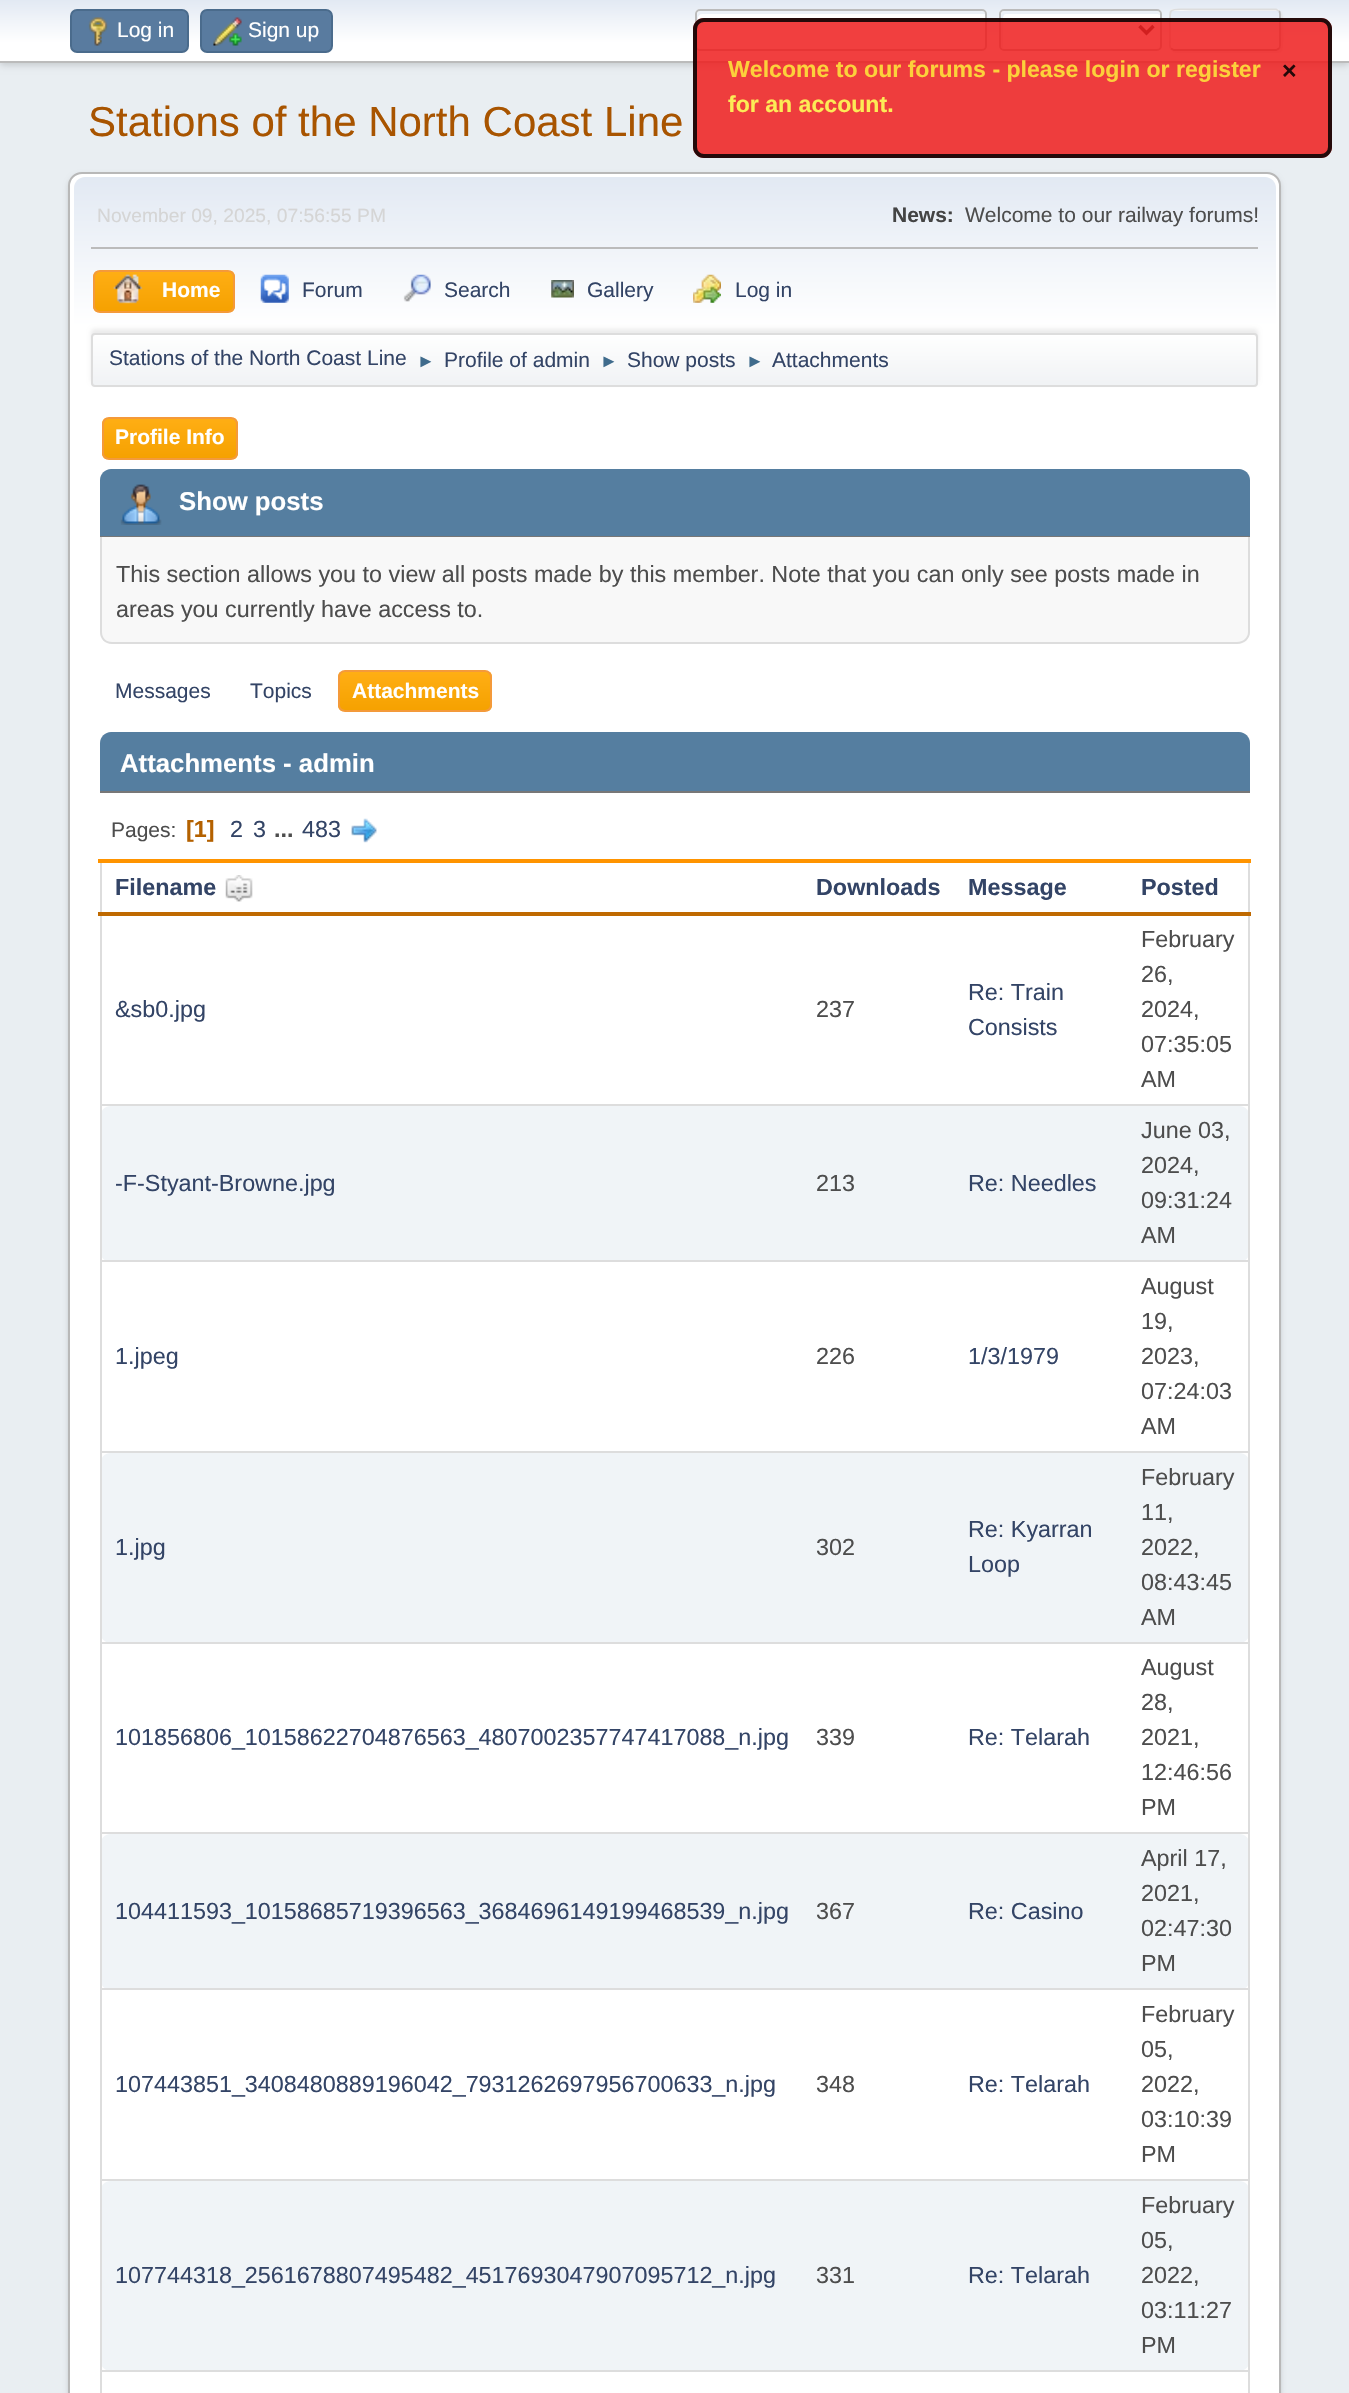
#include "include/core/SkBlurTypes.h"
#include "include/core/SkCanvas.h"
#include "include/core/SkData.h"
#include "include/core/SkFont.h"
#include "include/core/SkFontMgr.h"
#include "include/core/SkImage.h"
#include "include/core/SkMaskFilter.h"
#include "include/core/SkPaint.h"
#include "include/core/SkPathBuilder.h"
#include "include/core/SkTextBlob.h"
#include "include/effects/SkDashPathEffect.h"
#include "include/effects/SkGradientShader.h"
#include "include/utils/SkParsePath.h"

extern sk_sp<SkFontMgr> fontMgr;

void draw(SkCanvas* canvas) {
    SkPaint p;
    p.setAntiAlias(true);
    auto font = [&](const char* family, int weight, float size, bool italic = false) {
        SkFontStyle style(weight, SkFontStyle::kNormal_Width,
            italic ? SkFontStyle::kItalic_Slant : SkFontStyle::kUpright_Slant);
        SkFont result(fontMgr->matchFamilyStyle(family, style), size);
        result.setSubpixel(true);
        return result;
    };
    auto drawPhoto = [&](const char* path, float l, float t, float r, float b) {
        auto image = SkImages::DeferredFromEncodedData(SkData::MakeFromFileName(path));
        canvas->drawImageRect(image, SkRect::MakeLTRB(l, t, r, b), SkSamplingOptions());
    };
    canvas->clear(0xFFE9EEF2);
    p.setColor(0x29000000);
    p.setMaskFilter(SkMaskFilter::MakeBlur(kNormal_SkBlurStyle, 3.5f));
    canvas->drawRect(SkRect::MakeLTRB(0, 2, 1349, 65), p);
    p.setMaskFilter(nullptr);
    {
        const SkColor colors[] = {0xFFE2E9F3, 0xFFFFFFFF};
        const float stops[] = {0, 0.7f};
        const SkPoint ends[] = {{675, 0}, {675, 61}};
        p.setShader(SkGradientShader::MakeLinear(ends, colors, stops, 2, SkTileMode::kClamp));
        p.setAlpha(255);
    }
    canvas->drawRect(SkRect::MakeLTRB(0, 0, 1349, 61), p);
    p.setShader(nullptr);
    p.setColor(0xFFBBBBBB);
    canvas->drawRect(SkRect::MakeLTRB(0, 61, 1349, 63), p);
    p.setColor(0xFF597B9F);
    canvas->drawRoundRect(SkRect::MakeLTRB(71, 10, 188, 52), 6, 6, p);
    p.setStyle(SkPaint::kStroke_Style);
    p.setStrokeWidth(2);
    p.setColor(0xFF4A6B8C);
    canvas->drawRoundRect(SkRect::MakeLTRB(71, 10, 188, 52), 6, 6, p);
    drawPhoto("media/1.png", 88, 17, 108, 46);
    auto font1 = font("Liberation Sans", 400, 21);
    p.setStyle(SkPaint::kFill_Style);
    p.setColor(0xFFFFFFFF);
    canvas->drawString("Log in", 117, 37, font1, p);
    p.setColor(0xFF597B9F);
    canvas->drawRoundRect(SkRect::MakeLTRB(201, 10, 332, 52), 6, 6, p);
    p.setStyle(SkPaint::kStroke_Style);
    p.setColor(0xFF4A6B8C);
    canvas->drawRoundRect(SkRect::MakeLTRB(201, 10, 332, 52), 6, 6, p);
    drawPhoto("media/2.png", 213, 17, 242, 46);
    p.setStyle(SkPaint::kFill_Style);
    p.setColor(0xFFFFFFFF);
    canvas->drawString("Sign up", 248, 37, font1, p);
    canvas->drawRoundRect(SkRect::MakeLTRB(695, 9, 987, 51), 5, 5, p);
    p.setColor(0xFFECF1F8);
    canvas->drawPath(SkPathBuilder().moveTo(702, 14).lineTo(984, 14).lineTo(985, 14).cubicTo(985, 12, 983, 11, 981, 11).lineTo(701, 11).cubicTo(699, 11, 697, 13, 697, 15).lineTo(697, 45).cubicTo(697, 46, 697, 47, 698, 48).lineTo(698, 18).cubicTo(698, 16, 700, 14, 702, 14).close().detach(), p);
    p.setStyle(SkPaint::kStroke_Style);
    p.setColor(0xFFBBBBBB);
    canvas->drawRoundRect(SkRect::MakeLTRB(696, 10, 986, 50), 4, 4, p);
    p.setStyle(SkPaint::kFill_Style);
    p.setColor(0xFFFFFFFF);
    canvas->drawRoundRect(SkRect::MakeLTRB(999, 9, 1162, 51), 5, 5, p);
    p.setColor(0xFFECF1F8);
    canvas->drawPath(SkPathBuilder().moveTo(1006, 14).lineTo(1158, 14).lineTo(1160, 15).cubicTo(1160, 13, 1158, 11, 1156, 11).lineTo(1005, 11).cubicTo(1003, 11, 1001, 13, 1001, 15).lineTo(1001, 45).cubicTo(1001, 46, 1002, 48, 1003, 48).lineTo(1003, 18).cubicTo(1003, 16, 1004, 14, 1006, 14).close().detach(), p);
    p.setStyle(SkPaint::kStroke_Style);
    p.setColor(0xFFBBBBBB);
    canvas->drawRoundRect(SkRect::MakeLTRB(1000, 10, 1161, 50), 4, 4, p);
    p.setStrokeWidth(3.5f);
    p.setColor(0xFF222222);
    canvas->drawPath(SkPathBuilder().moveTo(1139.5f, 26).lineTo(1146.5f, 33).lineTo(1153.5f, 26).detach(), p);
    p.setStyle(SkPaint::kFill_Style);
    p.setColor(0x91DDDDDD);
    p.setMaskFilter(SkMaskFilter::MakeBlur(kNormal_SkBlurStyle, 1));
    canvas->drawRoundRect(SkRect::MakeLTRB(1171, 11, 1283, 53), 5, 5, p);
    p.setMaskFilter(nullptr);
    canvas->save();
    canvas->clipPath(SkPathBuilder().moveTo(1174, 9).lineTo(1276, 9).cubicTo(1279, 9, 1281, 11, 1281, 14).lineTo(1281, 46).cubicTo(1281, 49, 1279, 51, 1276, 51).lineTo(1174, 51).cubicTo(1171, 51, 1169, 49, 1169, 46).lineTo(1169, 14).cubicTo(1169, 11, 1171, 9, 1174, 9).close().detach(), true);
    {
        const SkColor colors[] = {0xFFE2E9F3, 0xFFFFFFFF};
        const float stops[] = {0, 0.7f};
        const SkPoint ends[] = {{1225, -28}, {1225, 11}};
        p.setShader(SkGradientShader::MakeLinear(ends, colors, stops, 2, SkTileMode::kClamp));
        p.setAlpha(255);
    }
    canvas->drawRect(SkRect::MakeLTRB(1169, 9, 1281, 11), p);
    {
        const SkColor colors[] = {0xFFE2E9F3, 0xFFFFFFFF};
        const float stops[] = {0, 0.7f};
        const SkPoint ends[] = {{1225, 10}, {1225, 49}};
        p.setShader(SkGradientShader::MakeLinear(ends, colors, stops, 2, SkTileMode::kClamp));
        p.setAlpha(255);
    }
    canvas->drawRect(SkRect::MakeLTRB(1169, 11, 1281, 49), p);
    {
        const SkColor colors[] = {0xFFE2E9F3, 0xFFFFFFFF};
        const float stops[] = {0, 0.7f};
        const SkPoint ends[] = {{1225, 49}, {1225, 88}};
        p.setShader(SkGradientShader::MakeLinear(ends, colors, stops, 2, SkTileMode::kClamp));
        p.setAlpha(255);
    }
    canvas->drawRect(SkRect::MakeLTRB(1169, 49, 1281, 51), p);
    canvas->restore();
    p.setStyle(SkPaint::kStroke_Style);
    p.setStrokeWidth(1.8f);
    p.setShader(nullptr);
    p.setColor(0xFFBBBBBB);
    canvas->drawPath(SkPathBuilder().moveTo(1279, 11).cubicTo(1279.5f, 11.5f, 1280, 13, 1280, 14).lineTo(1280, 45.5f).cubicTo(1280, 46.5f, 1279.5f, 48, 1279, 48.5f).detach(), p);
    p.setColor(0xFFAAAAAA);
    canvas->drawPath(SkPathBuilder().moveTo(1279, 48.5f).lineTo(1276, 50).lineTo(1174, 50).lineTo(1171, 48.5f).detach(), p);
    p.setColor(0xFFDDDDDD);
    canvas->drawPath(SkPathBuilder().moveTo(1171, 48.5f).cubicTo(1169, 46.5f, 1170, 42.5f, 1170, 40).lineTo(1170, 30).cubicTo(1170, 6, 1166.5f, 9.5f, 1191, 9.5f).lineTo(1276, 9.5f).lineTo(1279, 11).detach(), p);
    auto font2 = font("Liberation Sans", 400, 42);
    p.setStyle(SkPaint::kFill_Style);
    p.setColor(0xFFA85400);
    canvas->drawString("Stations of the North Coast Line", 88, 136, font2, p);
    p.setColor(0x24000000);
    p.setMaskFilter(SkMaskFilter::MakeBlur(kNormal_SkBlurStyle, 2.5f));
    canvas->drawRoundRect(SkRect::MakeLTRB(68, 175, 1281, 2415), 14, 14, p);
    p.setMaskFilter(nullptr);
    p.setColor(0xFFFFFFFF);
    canvas->drawRoundRect(SkRect::MakeLTRB(69, 173, 1280, 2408), 13, 13, p);
    p.setStyle(SkPaint::kStroke_Style);
    p.setStrokeWidth(2);
    p.setColor(0xFFB8B8B8);
    canvas->drawRoundRect(SkRect::MakeLTRB(69, 173, 1280, 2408), 13, 13, p);
    p.setStyle(SkPaint::kFill_Style);
    {
        const SkColor colors[] = {0xFFE2E9F3, 0xFFFFFFFF};
        const float stops[] = {0, 0.7f};
        const SkPoint ends[] = {{675, 177}, {675, 390}};
        p.setShader(SkGradientShader::MakeLinear(ends, colors, stops, 2, SkTileMode::kClamp));
        p.setAlpha(255);
    }
    canvas->drawPath(SkPathBuilder().moveTo(85, 177).lineTo(1265, 177).cubicTo(1271, 177, 1276, 182, 1276, 188).lineTo(1276, 390).lineTo(74, 390).lineTo(74, 188).cubicTo(74, 182, 79, 177, 85, 177).close().detach(), p);
    p.setShader(nullptr);
    p.setColor(0xFFBBBBBB);
    canvas->drawRect(SkRect::MakeLTRB(91, 247, 1258, 249), p);
    auto font3 = font("Liberation Sans", 400, 19.25f);
    p.setColor(0xFFD5D5D5);
    canvas->drawString("November 09, 2025, 07:56:55 PM", 97, 222, font3, p);
    auto font4 = font("Liberation Sans", 700, 21);
    p.setColor(0xFF444444);
    canvas->drawString("News:", 892, 222, font4, p);
    p.setColor(0xFF4D4D4D);
    canvas->drawString("Welcome to our railway forums!", 965, 222, font1, p);
    canvas->save();
    canvas->clipPath(SkPathBuilder().moveTo(100, 270).lineTo(228, 270).cubicTo(232, 270, 235, 273, 235, 277).lineTo(235, 306).cubicTo(235, 310, 232, 313, 228, 313).lineTo(100, 313).cubicTo(96, 313, 93, 310, 93, 306).lineTo(93, 277).cubicTo(93, 273, 96, 270, 100, 270).close().detach(), true);
    {
        const SkColor colors[] = {0xFFFFAE14, 0xFFF5A100};
        const float stops[] = {0, 1};
        const SkPoint ends[] = {{164, 271}, {164, 312}};
        p.setShader(SkGradientShader::MakeLinear(ends, colors, stops, 2, SkTileMode::kClamp));
        p.setAlpha(255);
    }
    canvas->drawRect(SkRect::MakeLTRB(93, 271, 235, 312), p);
    canvas->restore();
    p.setStyle(SkPaint::kStroke_Style);
    p.setShader(nullptr);
    p.setColor(0xFFF49A3A);
    canvas->drawRoundRect(SkRect::MakeLTRB(94, 271, 234, 312), 6, 6, p);
    drawPhoto("media/3.png", 113, 274, 143, 304);
    p.setStyle(SkPaint::kFill_Style);
    p.setColor(0xFFFFFFFF);
    canvas->drawString("Home", 162, 297, font4, p);
    drawPhoto("media/4.png", 260, 274, 289, 303);
    p.setColor(0xFF334466);
    canvas->drawString("Forum", 302, 297, font1, p);
    drawPhoto("media/5.png", 403, 274, 431, 302);
    canvas->drawString("Search", 444, 297, font1, p);
    drawPhoto("media/6.png", 551, 280, 574, 298);
    canvas->drawString("Gallery", 587, 297, font1, p);
    drawPhoto("media/7.png", 693, 274, 721, 303);
    canvas->drawString("Log in", 735, 297, font1, p);
    p.setColor(0x14000000);
    p.setMaskFilter(SkMaskFilter::MakeBlur(kNormal_SkBlurStyle, 2));
    canvas->drawRoundRect(SkRect::MakeLTRB(91, 329, 1258, 383), 4, 4, p);
    p.setMaskFilter(nullptr);
    canvas->save();
    canvas->clipPath(SkPathBuilder().moveTo(95, 333).lineTo(1254, 333).cubicTo(1256, 333, 1258, 335, 1258, 337).lineTo(1258, 383).cubicTo(1258, 385, 1256, 387, 1254, 387).lineTo(95, 387).cubicTo(93, 387, 91, 385, 91, 383).lineTo(91, 337).cubicTo(91, 335, 93, 333, 95, 333).close().detach(), true);
    {
        const SkColor colors[] = {0xFFFFFFFF, 0xFFF1F3F5};
        const float stops[] = {0, 0.95f};
        const SkPoint ends[] = {{675, 334}, {675, 385}};
        p.setShader(SkGradientShader::MakeLinear(ends, colors, stops, 2, SkTileMode::kClamp));
        p.setAlpha(255);
    }
    canvas->drawRect(SkRect::MakeLTRB(91, 334, 1258, 385), p);
    canvas->restore();
    p.setStyle(SkPaint::kStroke_Style);
    p.setShader(nullptr);
    p.setColor(0xFFDDDDDD);
    canvas->drawRoundRect(SkRect::MakeLTRB(92, 334, 1257, 386), 3, 3, p);
    p.setStyle(SkPaint::kFill_Style);
    p.setColor(0xFF334466);
    canvas->drawString("Stations of the North Coast Line", 109, 365, font1, p);
    auto font5 = font("Liberation Sans", 400, 18);
    p.setColor(0xFF3F6B8C);
    canvas->drawString("►", 417, 367, font5, p);
    p.setColor(0xFF334466);
    canvas->drawString("Profile of admin", 444, 367, font1, p);
    p.setColor(0xFF3F6B8C);
    canvas->drawString("►", 600, 367, font5, p);
    p.setColor(0xFF334466);
    canvas->drawString("Show posts", 627, 367, font1, p);
    p.setColor(0xFF3F6B8C);
    canvas->drawString("►", 746, 367, font5, p);
    p.setColor(0xFF334466);
    canvas->drawString("Attachments", 772, 367, font1, p);
    canvas->save();
    canvas->clipPath(SkPathBuilder().moveTo(109, 417).lineTo(231, 417).cubicTo(235, 417, 238, 420, 238, 424).lineTo(238, 453).cubicTo(238, 457, 235, 460, 231, 460).lineTo(109, 460).cubicTo(105, 460, 102, 457, 102, 453).lineTo(102, 424).cubicTo(102, 420, 105, 417, 109, 417).close().detach(), true);
    {
        const SkColor colors[] = {0xFFFFAE14, 0xFFF5A100};
        const float stops[] = {0, 1};
        const SkPoint ends[] = {{170, 418}, {170, 459}};
        p.setShader(SkGradientShader::MakeLinear(ends, colors, stops, 2, SkTileMode::kClamp));
        p.setAlpha(255);
    }
    canvas->drawRect(SkRect::MakeLTRB(102, 418, 238, 459), p);
    canvas->restore();
    p.setStyle(SkPaint::kStroke_Style);
    p.setShader(nullptr);
    p.setColor(0xFFF49A3A);
    canvas->drawRoundRect(SkRect::MakeLTRB(103, 418, 237, 459), 6, 6, p);
    p.setStyle(SkPaint::kFill_Style);
    p.setColor(0xFFFFFFFF);
    canvas->drawString("Profile Info", 115, 444, font4, p);
    p.setColor(0xFF557EA0);
    canvas->drawPath(SkPathBuilder().moveTo(111, 469).lineTo(1239, 469).cubicTo(1245, 469, 1250, 474, 1250, 480).lineTo(1250, 537).lineTo(100, 537).lineTo(100, 480).cubicTo(100, 474, 105, 469, 111, 469).close().detach(), p);
    p.setColor(0xFF777777);
    canvas->drawRect(SkRect::MakeLTRB(100, 536, 1250, 537), p);
    drawPhoto("media/8.png", 120, 484, 162, 525);
    auto font6 = font("Liberation Sans", 700, 25.75f);
    p.setColor(0xFFFFFFFF);
    canvas->drawString("Show posts", 179, 510, font6, p);
    p.setColor(0xFFF8F8F8);
    canvas->drawPath(SkPathBuilder().moveTo(100, 537).lineTo(1250, 537).lineTo(1250, 632).cubicTo(1250, 638.5f, 1244.5f, 644, 1238, 644).lineTo(112, 644).cubicTo(105.5f, 644, 100, 638.5f, 100, 632).close().detach(), p);
    p.setColor(0xFFDDDDDD);
    canvas->drawPath(SkPathBuilder(SkPathFillType::kEvenOdd).moveTo(100, 537).lineTo(1250, 537).lineTo(1250, 632).cubicTo(1250, 639, 1244, 644, 1237, 644).lineTo(112, 644).cubicTo(105, 644, 100, 639, 100, 632).close().moveTo(102, 537).lineTo(1248, 537).lineTo(1248, 632).cubicTo(1248, 638, 1243, 642, 1237, 642).lineTo(112, 642).cubicTo(106, 642, 102, 638, 102, 632).close().detach(), p);
    auto font7 = font("Liberation Sans", 400, 23.35f);
    p.setColor(0xFF4D4D4D);
    canvas->drawString("This section allows you to view all posts made by this member. Note that you can only see posts made in", 116, 582, font7, p);
    canvas->drawString("areas you currently have access to.", 116, 617, font7, p);
    p.setColor(0xFF334466);
    canvas->drawString("Messages", 115, 698, font1, p);
    canvas->drawString("Topics", 250, 698, font1, p);
    canvas->save();
    canvas->clipPath(SkPathBuilder().moveTo(345, 670).lineTo(485, 670).cubicTo(489, 670, 492, 673, 492, 677).lineTo(492, 705).cubicTo(492, 709, 489, 712, 485, 712).lineTo(345, 712).cubicTo(341, 712, 338, 709, 338, 705).lineTo(338, 677).cubicTo(338, 673, 341, 670, 345, 670).close().detach(), true);
    {
        const SkColor colors[] = {0xFFFFAE14, 0xFFF5A100};
        const float stops[] = {0, 1};
        const SkPoint ends[] = {{415, 672}, {415, 711}};
        p.setShader(SkGradientShader::MakeLinear(ends, colors, stops, 2, SkTileMode::kClamp));
        p.setAlpha(255);
    }
    canvas->drawRect(SkRect::MakeLTRB(338, 672, 492, 711), p);
    canvas->restore();
    p.setStyle(SkPaint::kStroke_Style);
    p.setShader(nullptr);
    p.setColor(0xFFF49A3A);
    canvas->drawRoundRect(SkRect::MakeLTRB(339, 671, 491, 711), 6, 6, p);
    p.setStyle(SkPaint::kFill_Style);
    p.setColor(0xFFFFFFFF);
    canvas->drawString("Attachments", 352, 698, font4, p);
    p.setColor(0xFF557EA0);
    canvas->drawPath(SkPathBuilder().moveTo(111, 732).lineTo(1239, 732).cubicTo(1245, 732, 1250, 737, 1250, 743).lineTo(1250, 793).lineTo(100, 793).lineTo(100, 743).cubicTo(100, 737, 105, 732, 111, 732).close().detach(), p);
    p.setColor(0xFF777777);
    canvas->drawRect(SkRect::MakeLTRB(100, 791, 1250, 793), p);
    p.setColor(0xFFFFFFFF);
    canvas->drawString("Attachments - admin", 120, 772, font6, p);
    p.setColor(0xFF4D4D4D);
    canvas->drawString("Pages:", 111, 837, font1, p);
    auto font8 = font("Liberation Sans", 700, 23.35f);
    p.setColor(0xFFB46100);
    canvas->drawString("[1]", 186, 837, font8, p);
    p.setColor(0xFF334466);
    canvas->drawString("2", 230, 837, font7, p);
    canvas->drawString("3", 253, 837, font7, p);
    p.setColor(0xFF4D4D4D);
    canvas->drawString("...", 274, 837, font8, p);
    p.setColor(0xFF334466);
    canvas->drawString("483", 302, 837, font7, p);
    drawPhoto("media/9.png", 351, 818, 377, 843);
    p.setColor(0xFFF0F4F7);
    canvas->drawRoundRect(SkRect::MakeLTRB(100, 1106, 1250, 1262), 11, 11, p);
    {
        const struct { float l, t, r, b; SkColor color; } items[] = {
            {100, 1104, 1250, 1106, 0xFFDDDDDD},
            {100, 1260, 1250, 1262, 0xFFDDDDDD},
            {100, 1451, 1250, 1453, 0xFFDDDDDD},
        };
        for (auto [l, t, r, b, color] : items) {
            p.setColor(color);
            canvas->drawRect(SkRect::MakeLTRB(l, t, r, b), p);
        }
    }
    p.setColor(0xFFF0F4F7);
    canvas->drawRoundRect(SkRect::MakeLTRB(100, 1453, 1250, 1643), 11, 11, p);
    p.setColor(0xFFDDDDDD);
    canvas->drawRect(SkRect::MakeLTRB(100, 1642, 1250, 1644), p);
    canvas->drawRect(SkRect::MakeLTRB(100, 1832, 1250, 1834), p);
    p.setColor(0xFFF0F4F7);
    canvas->drawRoundRect(SkRect::MakeLTRB(100, 1834, 1250, 1990), 11, 11, p);
    p.setColor(0xFFDDDDDD);
    canvas->drawRect(SkRect::MakeLTRB(100, 1988, 1250, 1990), p);
    canvas->drawRect(SkRect::MakeLTRB(100, 2179, 1250, 2181), p);
    p.setColor(0xFFF0F4F7);
    canvas->drawRoundRect(SkRect::MakeLTRB(100, 2181, 1250, 2371), 11, 11, p);
    {
        const struct { float l, t, r, b; SkColor color; } items[] = {
            {100, 2370, 1250, 2372, 0xFFDDDDDD},
            {1248, 2370, 1250, 2393, 0xFFDDDDDD},
            {1248, 2179, 1250, 2371, 0xFFDDDDDD},
            {1248, 1988, 1250, 2181, 0xFFDDDDDD},
            {1248, 1832, 1250, 1990, 0xFFDDDDDD},
            {1248, 1642, 1250, 1834, 0xFFDDDDDD},
            {1248, 1451, 1250, 1643, 0xFFDDDDDD},
            {1248, 1260, 1250, 1453, 0xFFDDDDDD},
            {1248, 861, 1250, 1262, 0xFFDDDDDD},
            {100, 2370, 102, 2393, 0xFFDDDDDD},
            {100, 2179, 102, 2371, 0xFFDDDDDD},
            {100, 1988, 102, 2181, 0xFFDDDDDD},
            {100, 1832, 102, 1990, 0xFFDDDDDD},
            {100, 1642, 102, 1834, 0xFFDDDDDD},
            {100, 1451, 102, 1643, 0xFFDDDDDD},
            {100, 1260, 102, 1453, 0xFFDDDDDD},
            {100, 861, 102, 1262, 0xFFDDDDDD},
            {98, 859, 1251, 863, 0xFFFF9400},
            {98, 912, 1251, 916, 0xFFBF6900},
        };
        for (auto [l, t, r, b, color] : items) {
            p.setColor(color);
            canvas->drawRect(SkRect::MakeLTRB(l, t, r, b), p);
        }
    }
    p.setColor(0xFF334466);
    canvas->drawString("Filename", 115, 895, font8, p);
    drawPhoto("media/10.png", 225, 875, 253, 902);
    {
        const struct { const char* s; float x, y; } items[] = {
            {"Downloads", 816, 895},
            {"Message", 968, 895},
            {"Posted", 1141, 895},
        };
        for (auto [s, x, y] : items) {
            canvas->drawString(s, x, y, font8, p);
        }
    }
    canvas->drawString("&sb0.jpg", 115, 1017, font7, p);
    p.setColor(0xFF4D4D4D);
    canvas->drawString("237", 816, 1017, font7, p);
    p.setColor(0xFF334466);
    canvas->drawString("Re: Train", 968, 1000, font7, p);
    canvas->drawString("Consists", 968, 1035, font7, p);
    p.setColor(0xFF4D4D4D);
    {
        const struct { const char* s; float x, y; } items[] = {
            {"February", 1141, 947},
            {"26,", 1141, 982},
            {"2024,", 1141, 1017},
            {"07:35:05", 1141, 1052},
            {"AM", 1141, 1087},
        };
        for (auto [s, x, y] : items) {
            canvas->drawString(s, x, y, font7, p);
        }
    }
    p.setColor(0xFF334466);
    canvas->drawString("-F-Styant-Browne.jpg", 115, 1191, font7, p);
    p.setColor(0xFF4D4D4D);
    canvas->drawString("213", 816, 1191, font7, p);
    p.setColor(0xFF334466);
    canvas->drawString("Re: Needles", 968, 1191, font7, p);
    p.setColor(0xFF4D4D4D);
    {
        const struct { const char* s; float x, y; } items[] = {
            {"June 03,", 1141, 1138},
            {"2024,", 1141, 1173},
            {"09:31:24", 1141, 1208},
            {"AM", 1141, 1243},
        };
        for (auto [s, x, y] : items) {
            canvas->drawString(s, x, y, font7, p);
        }
    }
    p.setColor(0xFF334466);
    canvas->drawString("1.jpeg", 115, 1364, font7, p);
    p.setColor(0xFF4D4D4D);
    canvas->drawString("226", 816, 1364, font7, p);
    p.setColor(0xFF334466);
    canvas->drawString("1/3/1979", 968, 1364, font7, p);
    p.setColor(0xFF4D4D4D);
    {
        const struct { const char* s; float x, y; } items[] = {
            {"August", 1141, 1294},
            {"19,", 1141, 1329},
            {"2023,", 1141, 1364},
            {"07:24:03", 1141, 1399},
            {"AM", 1141, 1434},
        };
        for (auto [s, x, y] : items) {
            canvas->drawString(s, x, y, font7, p);
        }
    }
    p.setColor(0xFF334466);
    canvas->drawString("1.jpg", 115, 1555, font7, p);
    p.setColor(0xFF4D4D4D);
    canvas->drawString("302", 816, 1555, font7, p);
    p.setColor(0xFF334466);
    canvas->drawString("Re: Kyarran", 968, 1537, font7, p);
    canvas->drawString("Loop", 968, 1572, font7, p);
    p.setColor(0xFF4D4D4D);
    {
        const struct { const char* s; float x, y; } items[] = {
            {"February", 1141, 1485},
            {"11,", 1141, 1520},
            {"2022,", 1141, 1555},
            {"08:43:45", 1141, 1590},
            {"AM", 1141, 1625},
        };
        for (auto [s, x, y] : items) {
            canvas->drawString(s, x, y, font7, p);
        }
    }
    p.setColor(0xFF334466);
    canvas->drawString("101856806_10158622704876563_4807002357747417088_n.jpg", 115, 1745, font7, p);
    p.setColor(0xFF4D4D4D);
    canvas->drawString("339", 816, 1745, font7, p);
    p.setColor(0xFF334466);
    canvas->drawString("Re: Telarah", 968, 1745, font7, p);
    p.setColor(0xFF4D4D4D);
    {
        const struct { const char* s; float x, y; } items[] = {
            {"August", 1141, 1675},
            {"28,", 1141, 1710},
            {"2021,", 1141, 1745},
            {"12:46:56", 1141, 1780},
            {"PM", 1141, 1815},
        };
        for (auto [s, x, y] : items) {
            canvas->drawString(s, x, y, font7, p);
        }
    }
    p.setColor(0xFF334466);
    canvas->drawString("104411593_10158685719396563_3684696149199468539_n.jpg", 115, 1919, font7, p);
    p.setColor(0xFF4D4D4D);
    canvas->drawString("367", 816, 1919, font7, p);
    p.setColor(0xFF334466);
    canvas->drawString("Re: Casino", 968, 1919, font7, p);
    p.setColor(0xFF4D4D4D);
    {
        const struct { const char* s; float x, y; } items[] = {
            {"April 17,", 1141, 1866},
            {"2021,", 1141, 1901},
            {"02:47:30", 1141, 1936},
            {"PM", 1141, 1971},
        };
        for (auto [s, x, y] : items) {
            canvas->drawString(s, x, y, font7, p);
        }
    }
    p.setColor(0xFF334466);
    canvas->drawString("107443851_3408480889196042_7931262697956700633_n.jpg", 115, 2092, font7, p);
    p.setColor(0xFF4D4D4D);
    canvas->drawString("348", 816, 2092, font7, p);
    p.setColor(0xFF334466);
    canvas->drawString("Re: Telarah", 968, 2092, font7, p);
    p.setColor(0xFF4D4D4D);
    {
        const struct { const char* s; float x, y; } items[] = {
            {"February", 1141, 2022},
            {"05,", 1141, 2057},
            {"2022,", 1141, 2092},
            {"03:10:39", 1141, 2127},
            {"PM", 1141, 2162},
        };
        for (auto [s, x, y] : items) {
            canvas->drawString(s, x, y, font7, p);
        }
    }
    p.setColor(0xFF334466);
    canvas->drawString("107744318_2561678807495482_4517693047907095712_n.jpg", 115, 2283, font7, p);
    p.setColor(0xFF4D4D4D);
    canvas->drawString("331", 816, 2283, font7, p);
    p.setColor(0xFF334466);
    canvas->drawString("Re: Telarah", 968, 2283, font7, p);
    p.setColor(0xFF4D4D4D);
    {
        const struct { const char* s; float x, y; } items[] = {
            {"February", 1141, 2213},
            {"05,", 1141, 2248},
            {"2022,", 1141, 2283},
            {"03:11:27", 1141, 2318},
            {"PM", 1141, 2353},
        };
        for (auto [s, x, y] : items) {
            canvas->drawString(s, x, y, font7, p);
        }
    }
    p.setColor(0xD9EF1D1D);
    canvas->drawRoundRect(SkRect::MakeLTRB(693, 18, 1332, 158), 11, 11, p);
    p.setStyle(SkPaint::kStroke_Style);
    p.setStrokeWidth(4);
    p.setColor(0xD9000000);
    canvas->drawRoundRect(SkRect::MakeLTRB(695, 20, 1330, 156), 9, 9, p);
    auto font9 = font("Liberation Sans", 700, 23.1f);
    p.setStyle(SkPaint::kFill_Style);
    p.setColor(0xFFFCD13B);
    canvas->drawString("Welcome to our forums - please login or register", 728, 77, font9, p);
    p.setColor(0xFFFCEB56);
    canvas->drawString("for an account.", 728, 112, font9, p);
    auto font10 = font("Liberation Sans", 700, 25);
    p.setColor(0xFF240909);
    canvas->drawString("×", 1282, 79, font10, p);
}
